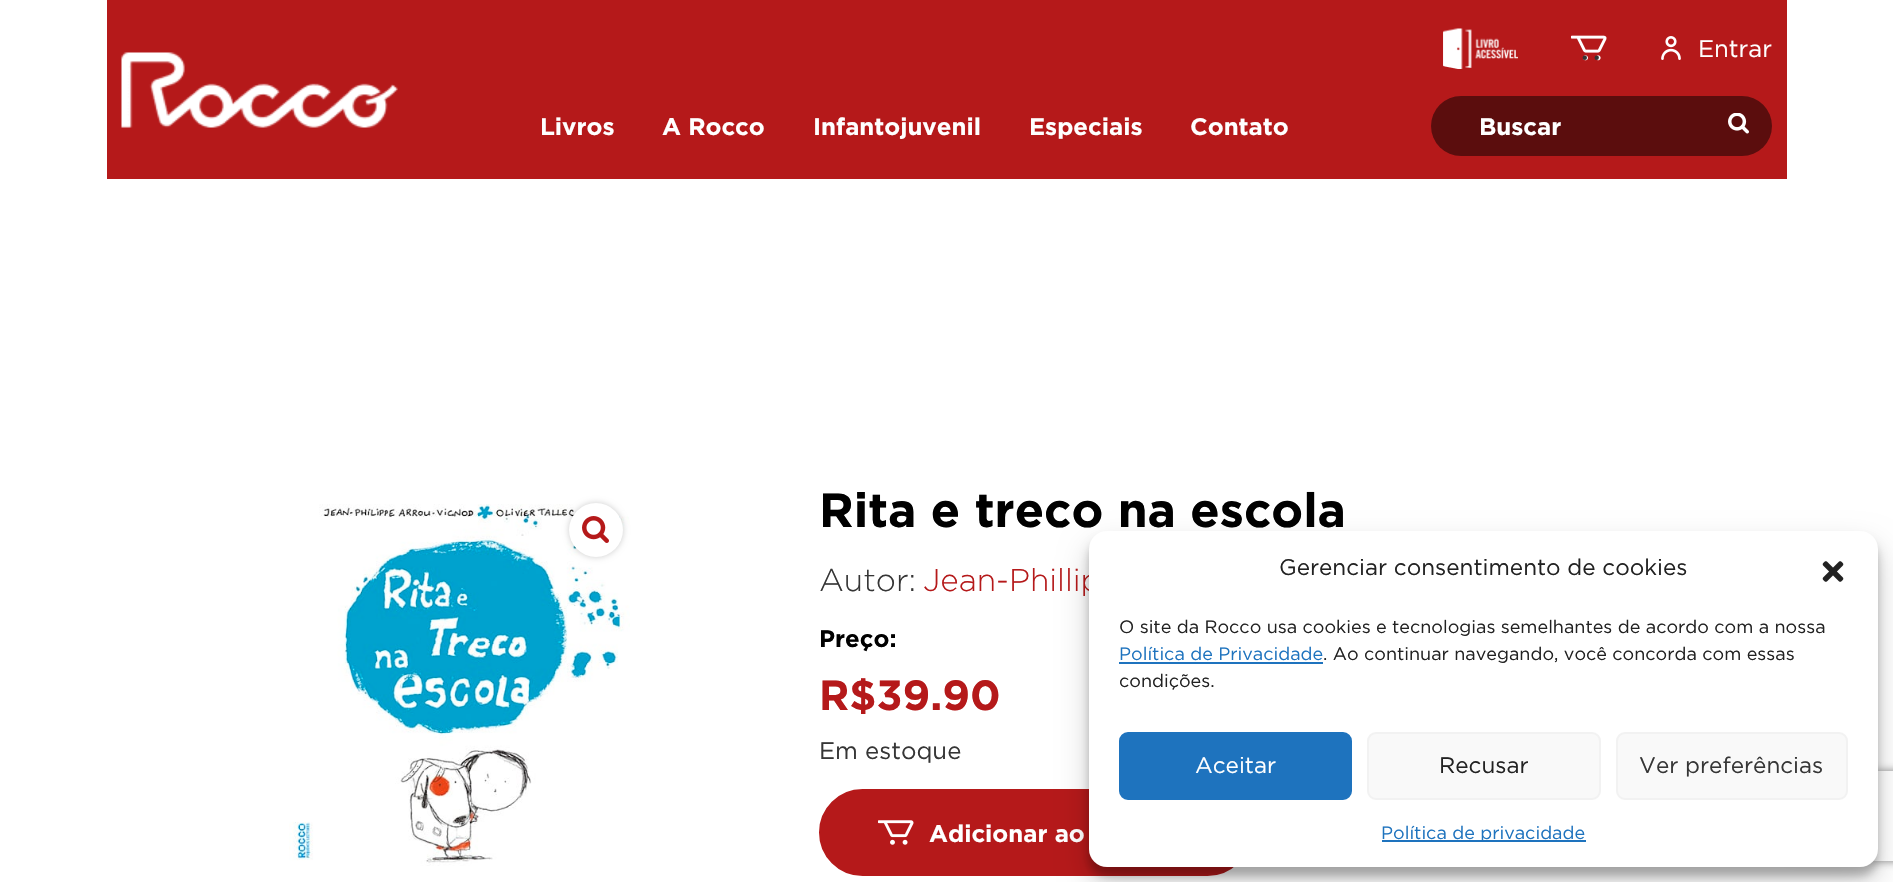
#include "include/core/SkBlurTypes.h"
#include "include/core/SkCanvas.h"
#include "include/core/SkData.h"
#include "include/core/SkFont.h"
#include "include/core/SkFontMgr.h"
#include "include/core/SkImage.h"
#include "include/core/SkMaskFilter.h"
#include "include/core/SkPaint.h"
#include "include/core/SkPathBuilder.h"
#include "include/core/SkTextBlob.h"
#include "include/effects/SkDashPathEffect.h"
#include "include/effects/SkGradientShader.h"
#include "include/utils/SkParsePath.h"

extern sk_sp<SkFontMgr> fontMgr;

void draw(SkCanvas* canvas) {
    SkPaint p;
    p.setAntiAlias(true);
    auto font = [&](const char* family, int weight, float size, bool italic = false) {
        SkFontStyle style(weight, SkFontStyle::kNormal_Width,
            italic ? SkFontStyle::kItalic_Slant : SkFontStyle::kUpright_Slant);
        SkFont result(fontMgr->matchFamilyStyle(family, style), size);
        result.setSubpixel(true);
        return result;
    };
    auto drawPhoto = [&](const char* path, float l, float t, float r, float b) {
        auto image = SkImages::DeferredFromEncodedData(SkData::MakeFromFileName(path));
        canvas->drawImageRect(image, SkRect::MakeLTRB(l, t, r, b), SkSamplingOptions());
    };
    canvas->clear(0xFFFFFFFF);
    p.setColor(0xFFB5191A);
    canvas->drawRect(SkRect::MakeLTRB(107, 0, 1787, 179), p);
    drawPhoto("media/1.png", 1443, 28, 1518, 69);
    drawPhoto("media/2.png", 1571, 35, 1607, 61);
    p.setColor(0xFF363636);
    canvas->drawCircle(1584.8f, 57.8f, 2.2f, p);
    canvas->drawCircle(1596.7f, 57.8f, 2.2f, p);
    drawPhoto("media/3.png", 1661, 36, 1681, 60);
    auto font1 = font("Gotham", 400, 24);
    p.setColor(0xFFFFFFFF);
    canvas->drawString("Entrar", 1698, 57, font1, p);
    drawPhoto("media/4.png", 121, 52, 398, 128);
    auto font2 = font("Gotham", 700, 24);
    {
        const struct { const char* s; float x, y; } items[] = {
            {"Livros", 540, 135},
            {"A Rocco", 662, 135},
            {"Infantojuvenil", 813, 135},
            {"Especiais", 1029, 135},
            {"Contato", 1190, 135},
        };
        for (auto [s, x, y] : items) {
            canvas->drawString(s, x, y, font2, p);
        }
    }
    p.setColor(0xFF5B0D0D);
    canvas->drawRoundRect(SkRect::MakeLTRB(1431, 96, 1772, 156), 30, 30, p);
    p.setColor(0xFFFFFFFF);
    canvas->drawString("Buscar", 1479, 135, font2, p);
    drawPhoto("media/5.png", 1728, 113, 1749, 134);
    drawPhoto("media/7.png", 289, 504, 630, 866);
    p.setColor(0x33000000);
    p.setMaskFilter(SkMaskFilter::MakeBlur(kNormal_SkBlurStyle, 3));
    canvas->drawRoundRect(SkRect::MakeLTRB(569, 503, 623, 557), 27, 27, p);
    p.setMaskFilter(nullptr);
    p.setColor(0xFFFFFFFF);
    canvas->drawCircle(596, 530, 27, p);
    drawPhoto("media/6.png", 582, 516, 609, 543);
    auto font3 = font("Gotham", 700, 48);
    p.setColor(0xFF000000);
    canvas->drawString("Rita e treco na escola", 819, 527, font3, p);
    auto font4 = font("Gotham", 300, 31.5f);
    p.setColor(0xFF363636);
    canvas->drawString("Autor:", 819, 591, font4, p);
    p.setColor(0xFFB5191A);
    canvas->drawString("Jean-Phillip", 923, 591, font4, p);
    p.setColor(0xFF000000);
    canvas->drawString("Preço:", 819, 647, font2, p);
    auto font5 = font("Gotham", 700, 42);
    p.setColor(0xFFB5191A);
    canvas->drawString("R$39.90", 819, 710, font5, p);
    p.setColor(0xFF363636);
    canvas->drawString("Em estoque", 819, 759, font1, p);
    p.setColor(0xFFB5191A);
    canvas->drawRoundRect(SkRect::MakeLTRB(820, 790, 1250, 875), 42.5f, 42.5f, p);
    p.setStyle(SkPaint::kStroke_Style);
    p.setStrokeWidth(2);
    canvas->drawRoundRect(SkRect::MakeLTRB(820, 790, 1250, 875), 42.5f, 42.5f, p);
    drawPhoto("media/8.png", 878, 820, 914, 845);
    p.setStyle(SkPaint::kFill_Style);
    p.setColor(0xFFFFFFFF);
    canvas->drawString("Adicionar ao", 929, 842, font2, p);
    p.setColor(0x3B000000);
    p.setMaskFilter(SkMaskFilter::MakeBlur(kNormal_SkBlurStyle, 4.5f));
    canvas->drawRoundRect(SkRect::MakeLTRB(1089, 540, 1878, 876), 18, 18, p);
    p.setMaskFilter(nullptr);
    p.setColor(0x30000000);
    p.setMaskFilter(SkMaskFilter::MakeBlur(kNormal_SkBlurStyle, 15));
    canvas->drawRoundRect(SkRect::MakeLTRB(1089, 546, 1878, 882), 18, 18, p);
    p.setMaskFilter(nullptr);
    canvas->save();
    canvas->clipPath(SkPathBuilder(SkPathFillType::kEvenOdd).moveTo(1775, 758).lineTo(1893, 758).lineTo(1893, 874).lineTo(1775, 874).close().moveTo(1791, 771).lineTo(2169, 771).cubicTo(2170.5f, 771, 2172, 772.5f, 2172, 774).lineTo(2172, 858).cubicTo(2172, 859.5f, 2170.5f, 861, 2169, 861).lineTo(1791, 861).cubicTo(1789.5f, 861, 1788, 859.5f, 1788, 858).lineTo(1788, 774).cubicTo(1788, 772.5f, 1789.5f, 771, 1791, 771).close().detach(), true);
    p.setColor(0xFF808080);
    p.setMaskFilter(SkMaskFilter::MakeBlur(kNormal_SkBlurStyle, 4));
    canvas->drawRoundRect(SkRect::MakeLTRB(1788, 771, 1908, 861), 3, 3, p);
    p.setMaskFilter(nullptr);
    canvas->restore();
    p.setColor(0xFFFFFFFF);
    canvas->drawRoundRect(SkRect::MakeLTRB(1089, 531, 1878, 867), 18, 18, p);
    auto font6 = font("Gotham", 400, 22.5f);
    p.setColor(0xFF222222);
    canvas->drawString("Gerenciar consentimento de cookies", 1279, 575, font6, p);
    drawPhoto("media/9.png", 1822, 561, 1844, 582);
    auto font7 = font("Gotham", 400, 18);
    canvas->drawString("O site da Rocco usa cookies e tecnologias semelhantes de acordo com a nossa", 1119, 633, font7, p);
    p.setColor(0xFF1E73BE);
    canvas->drawString("Política de Privacidade", 1119, 660, font7, p);
    canvas->drawRect(SkRect::MakeLTRB(1119, 662, 1323, 664), p);
    p.setColor(0xFF222222);
    canvas->drawString(". Ao continuar navegando, você concorda com essas", 1323, 660, font7, p);
    canvas->drawString("condições.", 1119, 687, font7, p);
    p.setColor(0xFF1E73BE);
    canvas->drawRoundRect(SkRect::MakeLTRB(1120, 733, 1351, 799), 8, 8, p);
    p.setStyle(SkPaint::kStroke_Style);
    canvas->drawRoundRect(SkRect::MakeLTRB(1120, 733, 1351, 799), 8, 8, p);
    p.setStyle(SkPaint::kFill_Style);
    p.setColor(0xFFFFFFFF);
    canvas->drawString("Aceitar", 1195, 773, font6, p);
    p.setColor(0xFFF9F9F9);
    canvas->drawRoundRect(SkRect::MakeLTRB(1368, 733, 1600, 799), 8, 8, p);
    p.setStyle(SkPaint::kStroke_Style);
    p.setColor(0xFFF2F2F2);
    canvas->drawRoundRect(SkRect::MakeLTRB(1368, 733, 1600, 799), 8, 8, p);
    p.setStyle(SkPaint::kFill_Style);
    p.setColor(0xFF222222);
    canvas->drawString("Recusar", 1439, 773, font6, p);
    p.setColor(0xFFF9F9F9);
    canvas->drawRoundRect(SkRect::MakeLTRB(1617, 733, 1847, 799), 8, 8, p);
    p.setStyle(SkPaint::kStroke_Style);
    p.setColor(0xFFF2F2F2);
    canvas->drawRoundRect(SkRect::MakeLTRB(1617, 733, 1847, 799), 8, 8, p);
    p.setStyle(SkPaint::kFill_Style);
    p.setColor(0xFF363636);
    canvas->drawString("Ver preferências", 1639, 773, font6, p);
    p.setColor(0xFF1E73BE);
    canvas->drawRect(SkRect::MakeLTRB(1382, 840, 1586, 842), p);
    canvas->drawString("Política de privacidade", 1381, 839, font7, p);
}
